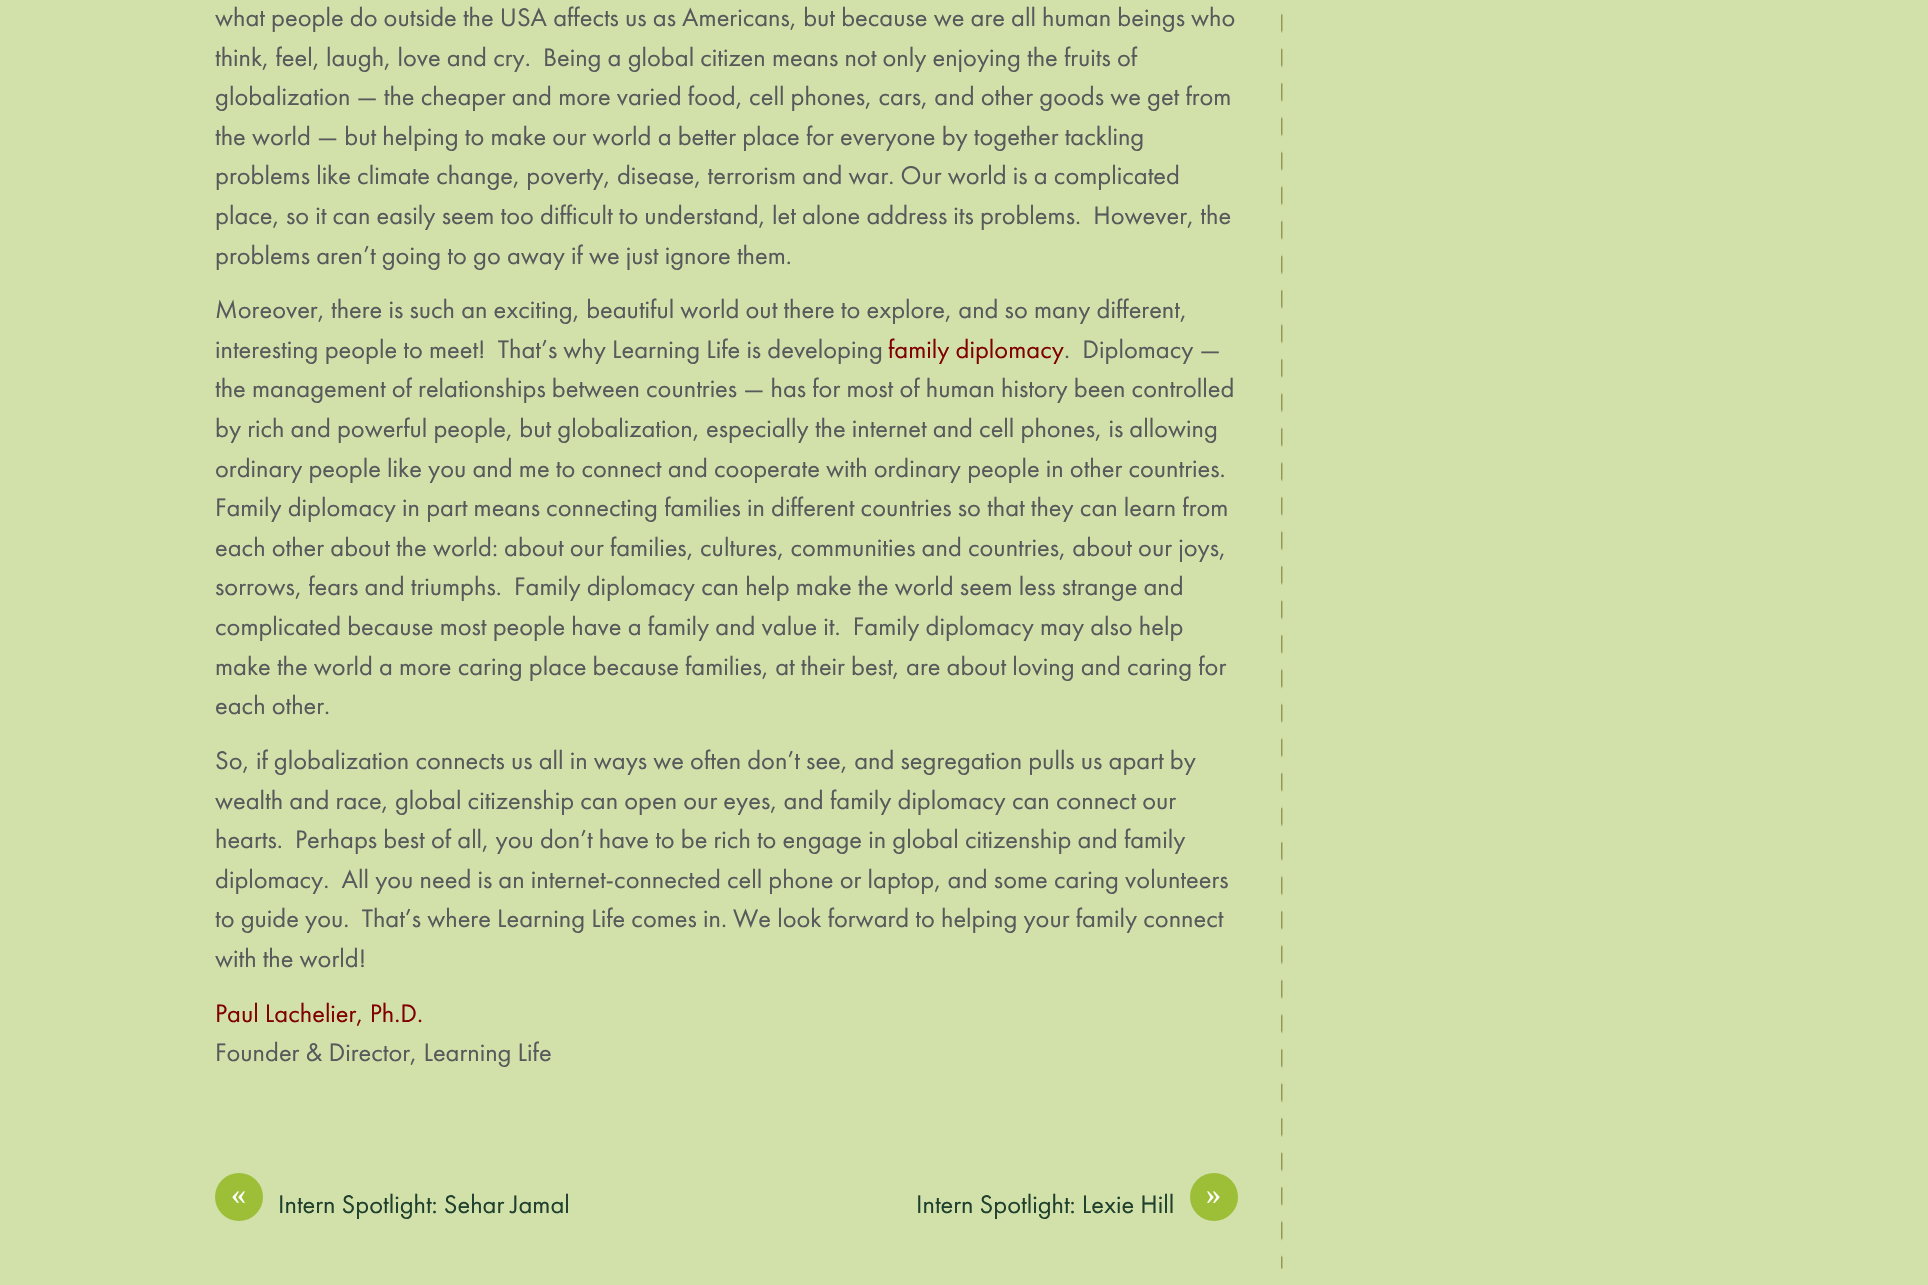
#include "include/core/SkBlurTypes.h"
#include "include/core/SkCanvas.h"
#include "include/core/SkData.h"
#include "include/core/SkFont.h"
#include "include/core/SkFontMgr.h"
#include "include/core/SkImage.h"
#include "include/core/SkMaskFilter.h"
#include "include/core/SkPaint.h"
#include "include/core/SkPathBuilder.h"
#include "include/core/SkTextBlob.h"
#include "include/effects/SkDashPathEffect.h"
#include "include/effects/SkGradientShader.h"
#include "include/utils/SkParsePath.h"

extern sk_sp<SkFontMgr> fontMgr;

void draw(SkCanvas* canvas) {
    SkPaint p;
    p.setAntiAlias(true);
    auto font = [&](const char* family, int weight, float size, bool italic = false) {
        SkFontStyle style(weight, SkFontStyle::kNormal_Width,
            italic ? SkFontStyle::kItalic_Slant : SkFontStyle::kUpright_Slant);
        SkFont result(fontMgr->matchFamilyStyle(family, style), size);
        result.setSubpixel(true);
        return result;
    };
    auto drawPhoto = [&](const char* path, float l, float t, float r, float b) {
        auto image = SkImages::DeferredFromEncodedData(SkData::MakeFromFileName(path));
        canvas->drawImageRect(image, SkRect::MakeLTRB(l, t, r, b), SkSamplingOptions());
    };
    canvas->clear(0xFFD2E0AA);
    drawPhoto("media/1.png", 1281, 13, 1283, 1269);
    auto font1 = font("Futura PT", 400, 26.4f);
    p.setColor(0xFF58595B);
    {
        const struct { const char* s; float x, y; } items[] = {
            {"what people do outside the USA affects us as Americans, but because we are all human beings who", 215, 26},
            {"think, feel, laugh, love and cry.  Being a global citizen means not only enjoying the fruits of", 215, 66},
            {"globalization — the cheaper and more varied food, cell phones, cars, and other goods we get from", 215, 105},
            {"the world — but helping to make our world a better place for everyone by together tackling", 215, 145},
            {"problems like climate change, poverty, disease, terrorism and war. Our world is a complicated", 215, 184},
            {"place, so it can easily seem too difficult to understand, let alone address its problems.  However, the", 215, 224},
            {"problems aren’t going to go away if we just ignore them.", 215, 264},
            {"Moreover, there is such an exciting, beautiful world out there to explore, and so many different,", 215, 318},
            {"interesting people to meet!  That’s why Learning Life is developing", 215, 358},
        };
        for (auto [s, x, y] : items) {
            canvas->drawString(s, x, y, font1, p);
        }
    }
    p.setColor(0xFF800000);
    canvas->drawString("family diplomacy", 888, 358, font1, p);
    p.setColor(0xFF58595B);
    {
        const struct { const char* s; float x, y; } items[] = {
            {".  Diplomacy —", 1064, 358},
            {"the management of relationships between countries — has for most of human history been controlled", 215, 397},
            {"by rich and powerful people, but globalization, especially the internet and cell phones, is allowing", 215, 437},
            {"ordinary people like you and me to connect and cooperate with ordinary people in other countries.", 215, 477},
            {"Family diplomacy in part means connecting families in different countries so that they can learn from", 215, 516},
            {"each other about the world: about our families, cultures, communities and countries, about our joys,", 215, 556},
            {"sorrows, fears and triumphs.  Family diplomacy can help make the world seem less strange and", 215, 595},
            {"complicated because most people have a family and value it.  Family diplomacy may also help", 215, 635},
            {"make the world a more caring place because families, at their best, are about loving and caring for", 215, 675},
            {"each other.", 215, 714},
            {"So, if globalization connects us all in ways we often don’t see, and segregation pulls us apart by", 215, 769},
            {"wealth and race, global citizenship can open our eyes, and family diplomacy can connect our", 215, 809},
            {"hearts.  Perhaps best of all, you don’t have to be rich to engage in global citizenship and family", 215, 848},
            {"diplomacy.  All you need is an internet-connected cell phone or laptop, and some caring volunteers", 215, 888},
            {"to guide you.  That’s where Learning Life comes in. We look forward to helping your family connect", 215, 927},
            {"with the world!", 215, 967},
        };
        for (auto [s, x, y] : items) {
            canvas->drawString(s, x, y, font1, p);
        }
    }
    p.setColor(0xFF800000);
    canvas->drawString("Paul Lachelier, Ph.D.", 215, 1022, font1, p);
    p.setColor(0xFF58595B);
    canvas->drawString("Founder & Director, Learning Life", 215, 1061, font1, p);
    p.setColor(0xFF9DBE37);
    canvas->drawCircle(239, 1197, 24, p);
    auto font2 = font("Liberation Serif", 400, 30);
    p.setColor(0xFFFFFFFF);
    canvas->drawString("«", 231, 1204, font2, p);
    p.setColor(0xFF1F402D);
    canvas->drawString("Intern Spotlight: Sehar Jamal", 278, 1213, font1, p);
    canvas->drawString("Intern Spotlight: Lexie Hill", 916, 1213, font1, p);
    p.setColor(0xFF9DBE37);
    canvas->drawCircle(1214, 1197, 24, p);
    p.setColor(0xFFFFFFFF);
    canvas->drawString("»", 1206, 1204, font2, p);
}
